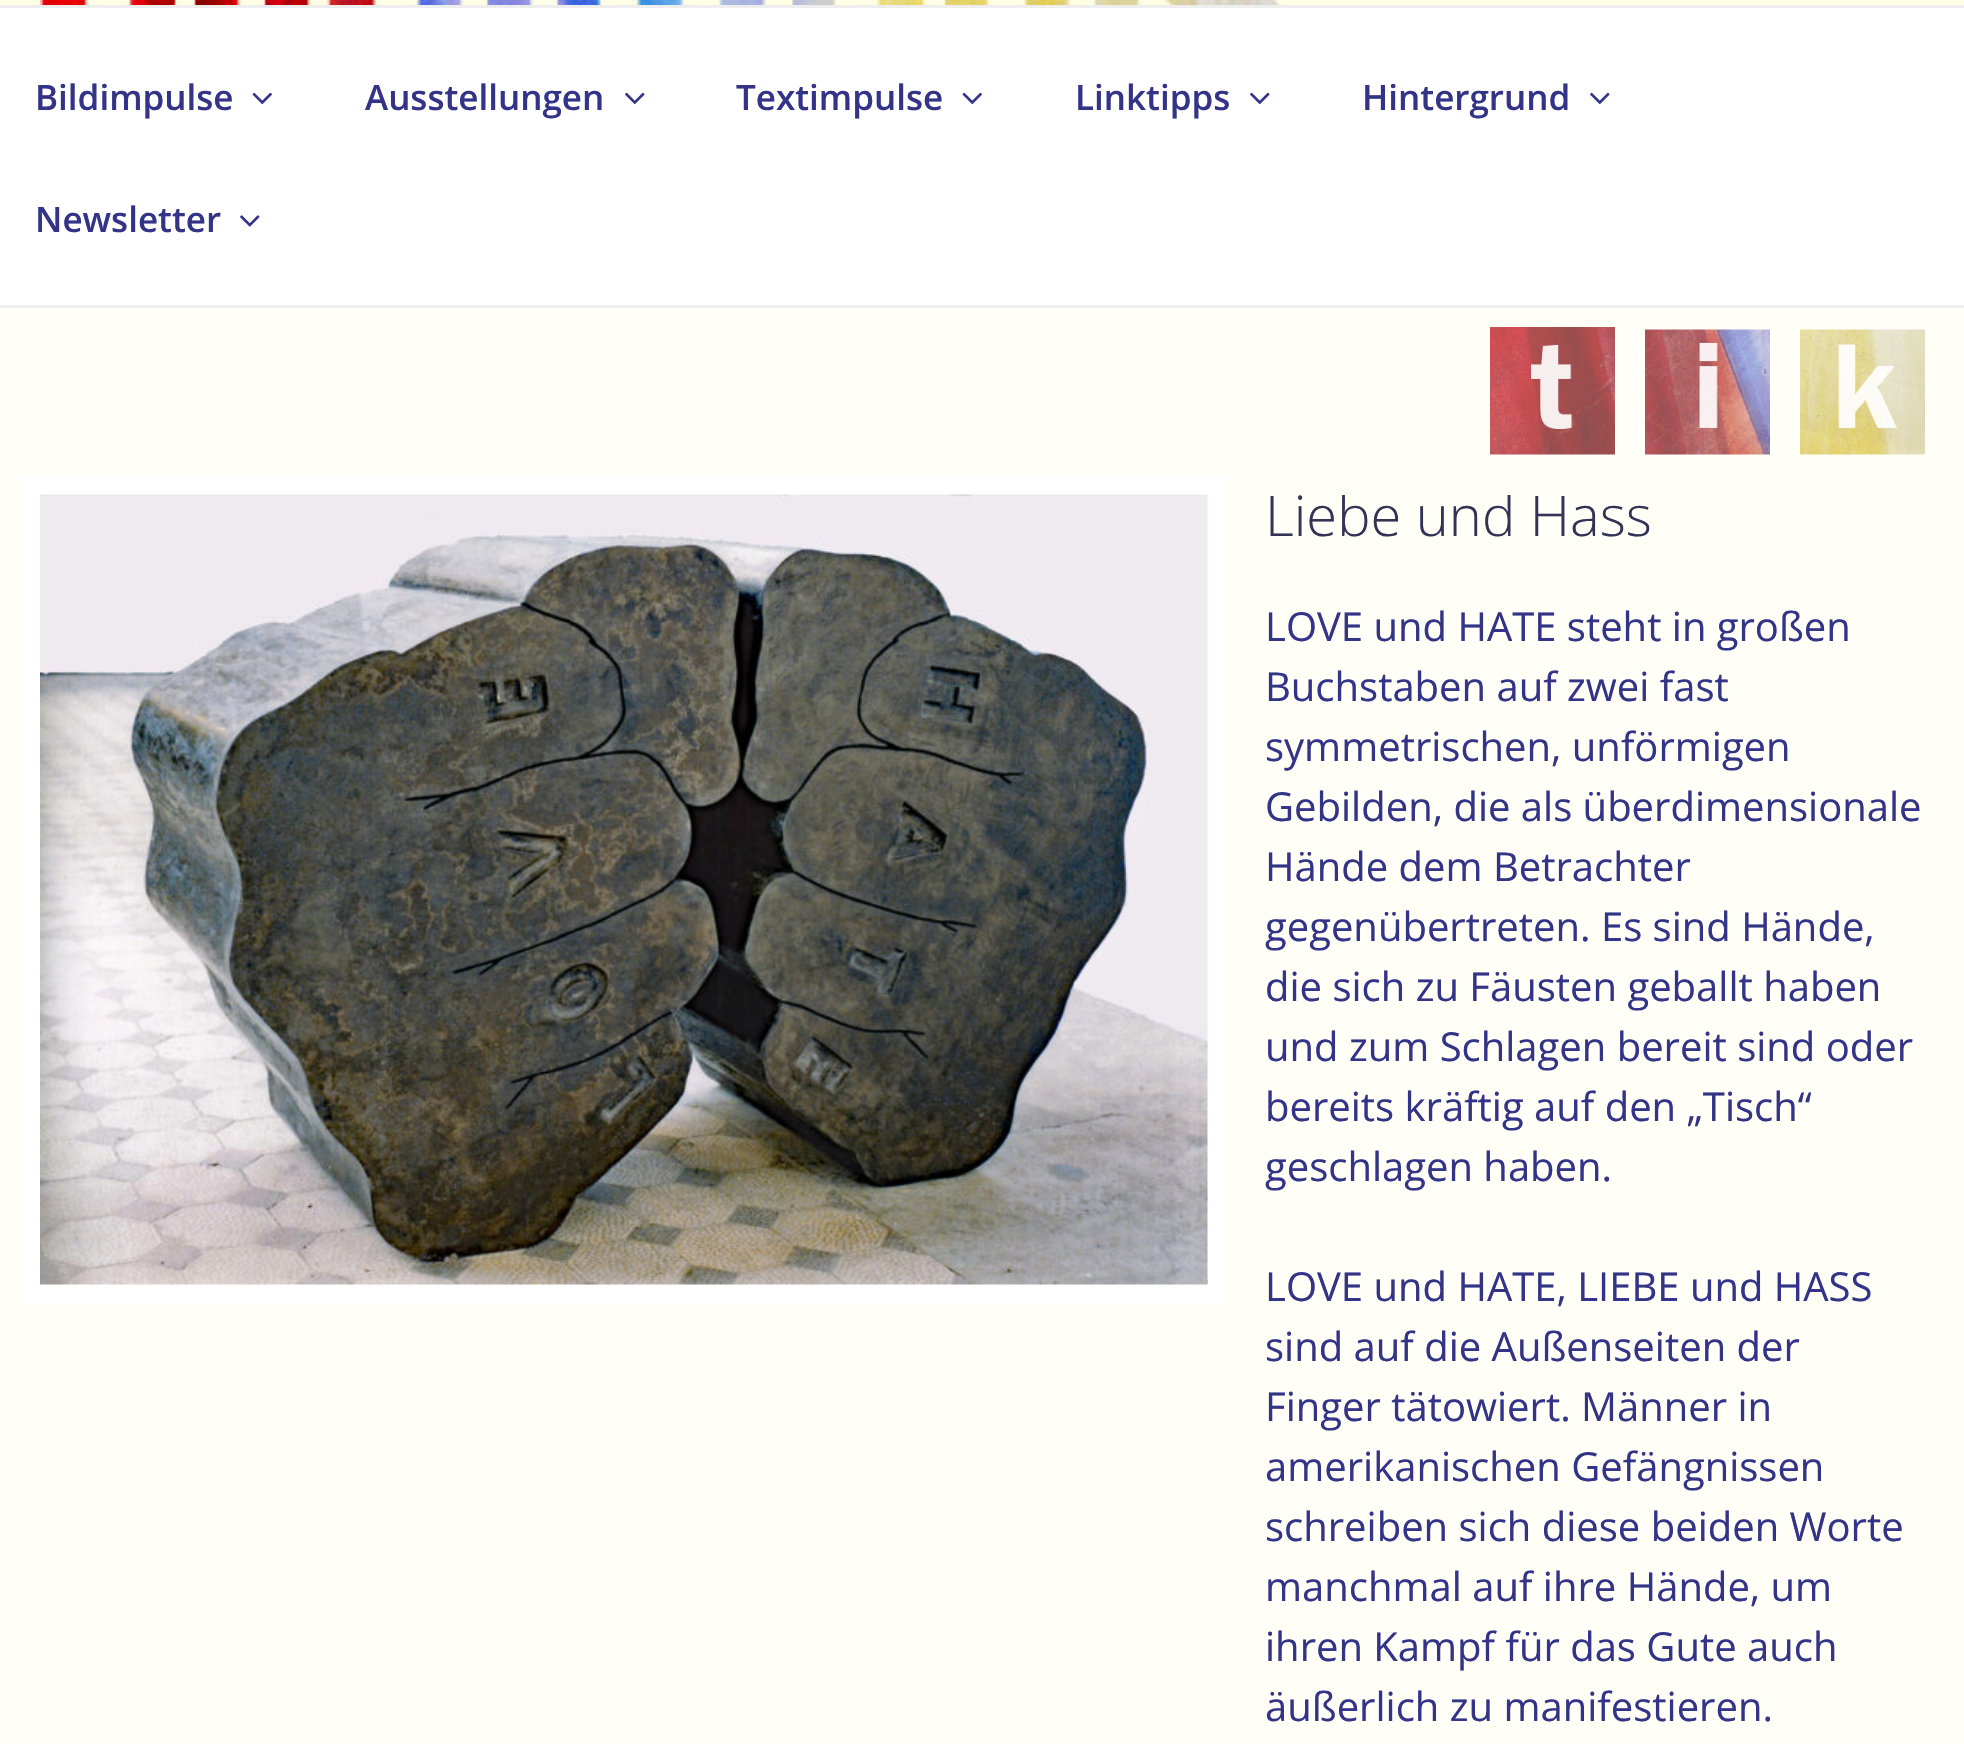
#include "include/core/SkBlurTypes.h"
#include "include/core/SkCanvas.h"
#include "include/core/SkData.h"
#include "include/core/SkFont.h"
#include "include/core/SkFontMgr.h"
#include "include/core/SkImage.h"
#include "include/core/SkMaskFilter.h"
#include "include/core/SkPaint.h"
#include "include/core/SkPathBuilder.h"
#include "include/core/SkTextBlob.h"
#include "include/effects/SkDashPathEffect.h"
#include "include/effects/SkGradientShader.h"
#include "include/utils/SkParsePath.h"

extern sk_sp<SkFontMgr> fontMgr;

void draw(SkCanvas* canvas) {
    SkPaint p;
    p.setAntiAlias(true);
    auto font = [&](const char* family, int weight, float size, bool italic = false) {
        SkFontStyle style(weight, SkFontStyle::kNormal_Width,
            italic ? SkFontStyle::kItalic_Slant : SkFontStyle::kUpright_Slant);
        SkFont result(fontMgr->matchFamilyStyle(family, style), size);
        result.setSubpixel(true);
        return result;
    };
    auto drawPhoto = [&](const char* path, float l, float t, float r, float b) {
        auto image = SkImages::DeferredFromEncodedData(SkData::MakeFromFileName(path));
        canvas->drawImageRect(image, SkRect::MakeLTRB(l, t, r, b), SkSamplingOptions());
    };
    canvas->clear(0xFFFFFFE5);
    drawPhoto("media/1.png", 40, 0, 1290, 5);
    {
        const struct { float l, t, r, b; SkColor color; } items[] = {
            {0, 8, 1964, 305, 0xFFFFFFFF},
            {0, 5, 1964, 8, 0xFFEEEEEE},
            {0, 305, 1964, 308, 0xFFEEEEEE},
        };
        for (auto [l, t, r, b, color] : items) {
            p.setColor(color);
            canvas->drawRect(SkRect::MakeLTRB(l, t, r, b), p);
        }
    }
    auto font1 = font("Open Sans", 600, 35);
    p.setColor(0xFF333388);
    canvas->drawString("Bildimpulse", 35, 110, font1, p);
    drawPhoto("media/2.png", 252, 92, 272, 105);
    canvas->drawString("Ausstellungen", 365, 110, font1, p);
    drawPhoto("media/3.png", 625, 92, 645, 105);
    canvas->drawString("Textimpulse", 736, 110, font1, p);
    drawPhoto("media/2.png", 962, 92, 982, 105);
    canvas->drawString("Linktipps", 1075, 110, font1, p);
    drawPhoto("media/3.png", 1250, 92, 1270, 105);
    canvas->drawString("Hintergrund", 1362, 110, font1, p);
    drawPhoto("media/3.png", 1590, 92, 1610, 105);
    canvas->drawString("Newsletter", 35, 232, font1, p);
    drawPhoto("media/4.png", 240, 215, 260, 227);
    p.setColor(0xFFFFFFF8);
    canvas->drawRect(SkRect::MakeLTRB(0, 308, 1964, 1744), p);
    drawPhoto("media/5.png", 1490, 327, 1615, 455);
    drawPhoto("media/6.png", 1645, 329, 1770, 455);
    drawPhoto("media/7.png", 1800, 329, 1925, 455);
    p.setColor(0xFFC8C8C8);
    canvas->drawRect(SkRect::MakeLTRB(1207, 1280, 1208, 1283), p);
    p.setStyle(SkPaint::kStroke_Style);
    p.setStrokeWidth(20);
    p.setColor(0xFFFFFFFF);
    canvas->drawRect(SkRect::MakeLTRB(30, 485, 1218, 1295), p);
    drawPhoto("media/8.png", 40, 494, 1208, 1285);
    canvas->save();
    canvas->clipRect(SkRect::MakeLTRB(1265, 495, 1925, 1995));
    auto font2 = font("Open Sans", 300, 56);
    p.setStyle(SkPaint::kFill_Style);
    p.setColor(0xFF333355);
    canvas->drawString("Liebe und Hass", 1265, 536, font2, p);
    canvas->restore();
    auto font3 = font("Open Sans", 400, 40);
    p.setColor(0xFF333388);
    {
        const struct { const char* s; float x, y; } items[] = {
            {"LOVE und HATE steht in großen", 1265, 641},
            {"Buchstaben auf zwei fast", 1265, 701},
            {"symmetrischen, unförmigen", 1265, 761},
            {"Gebilden, die als überdimensionale", 1265, 821},
            {"Hände dem Betrachter", 1265, 881},
            {"gegenübertreten. Es sind Hände,", 1265, 941},
            {"die sich zu Fäusten geballt haben", 1265, 1001},
            {"und zum Schlagen bereit sind oder", 1265, 1061},
            {"bereits kräftig auf den „Tisch“", 1265, 1121},
            {"geschlagen haben.", 1265, 1181},
            {"LOVE und HATE, LIEBE und HASS", 1265, 1301},
            {"sind auf die Außenseiten der", 1265, 1361},
            {"Finger tätowiert. Männer in", 1265, 1421},
            {"amerikanischen Gefängnissen", 1265, 1481},
            {"schreiben sich diese beiden Worte", 1265, 1541},
            {"manchmal auf ihre Hände, um", 1265, 1601},
            {"ihren Kampf für das Gute auch", 1265, 1661},
            {"äußerlich zu manifestieren.", 1265, 1721},
        };
        for (auto [s, x, y] : items) {
            canvas->drawString(s, x, y, font3, p);
        }
    }
}
